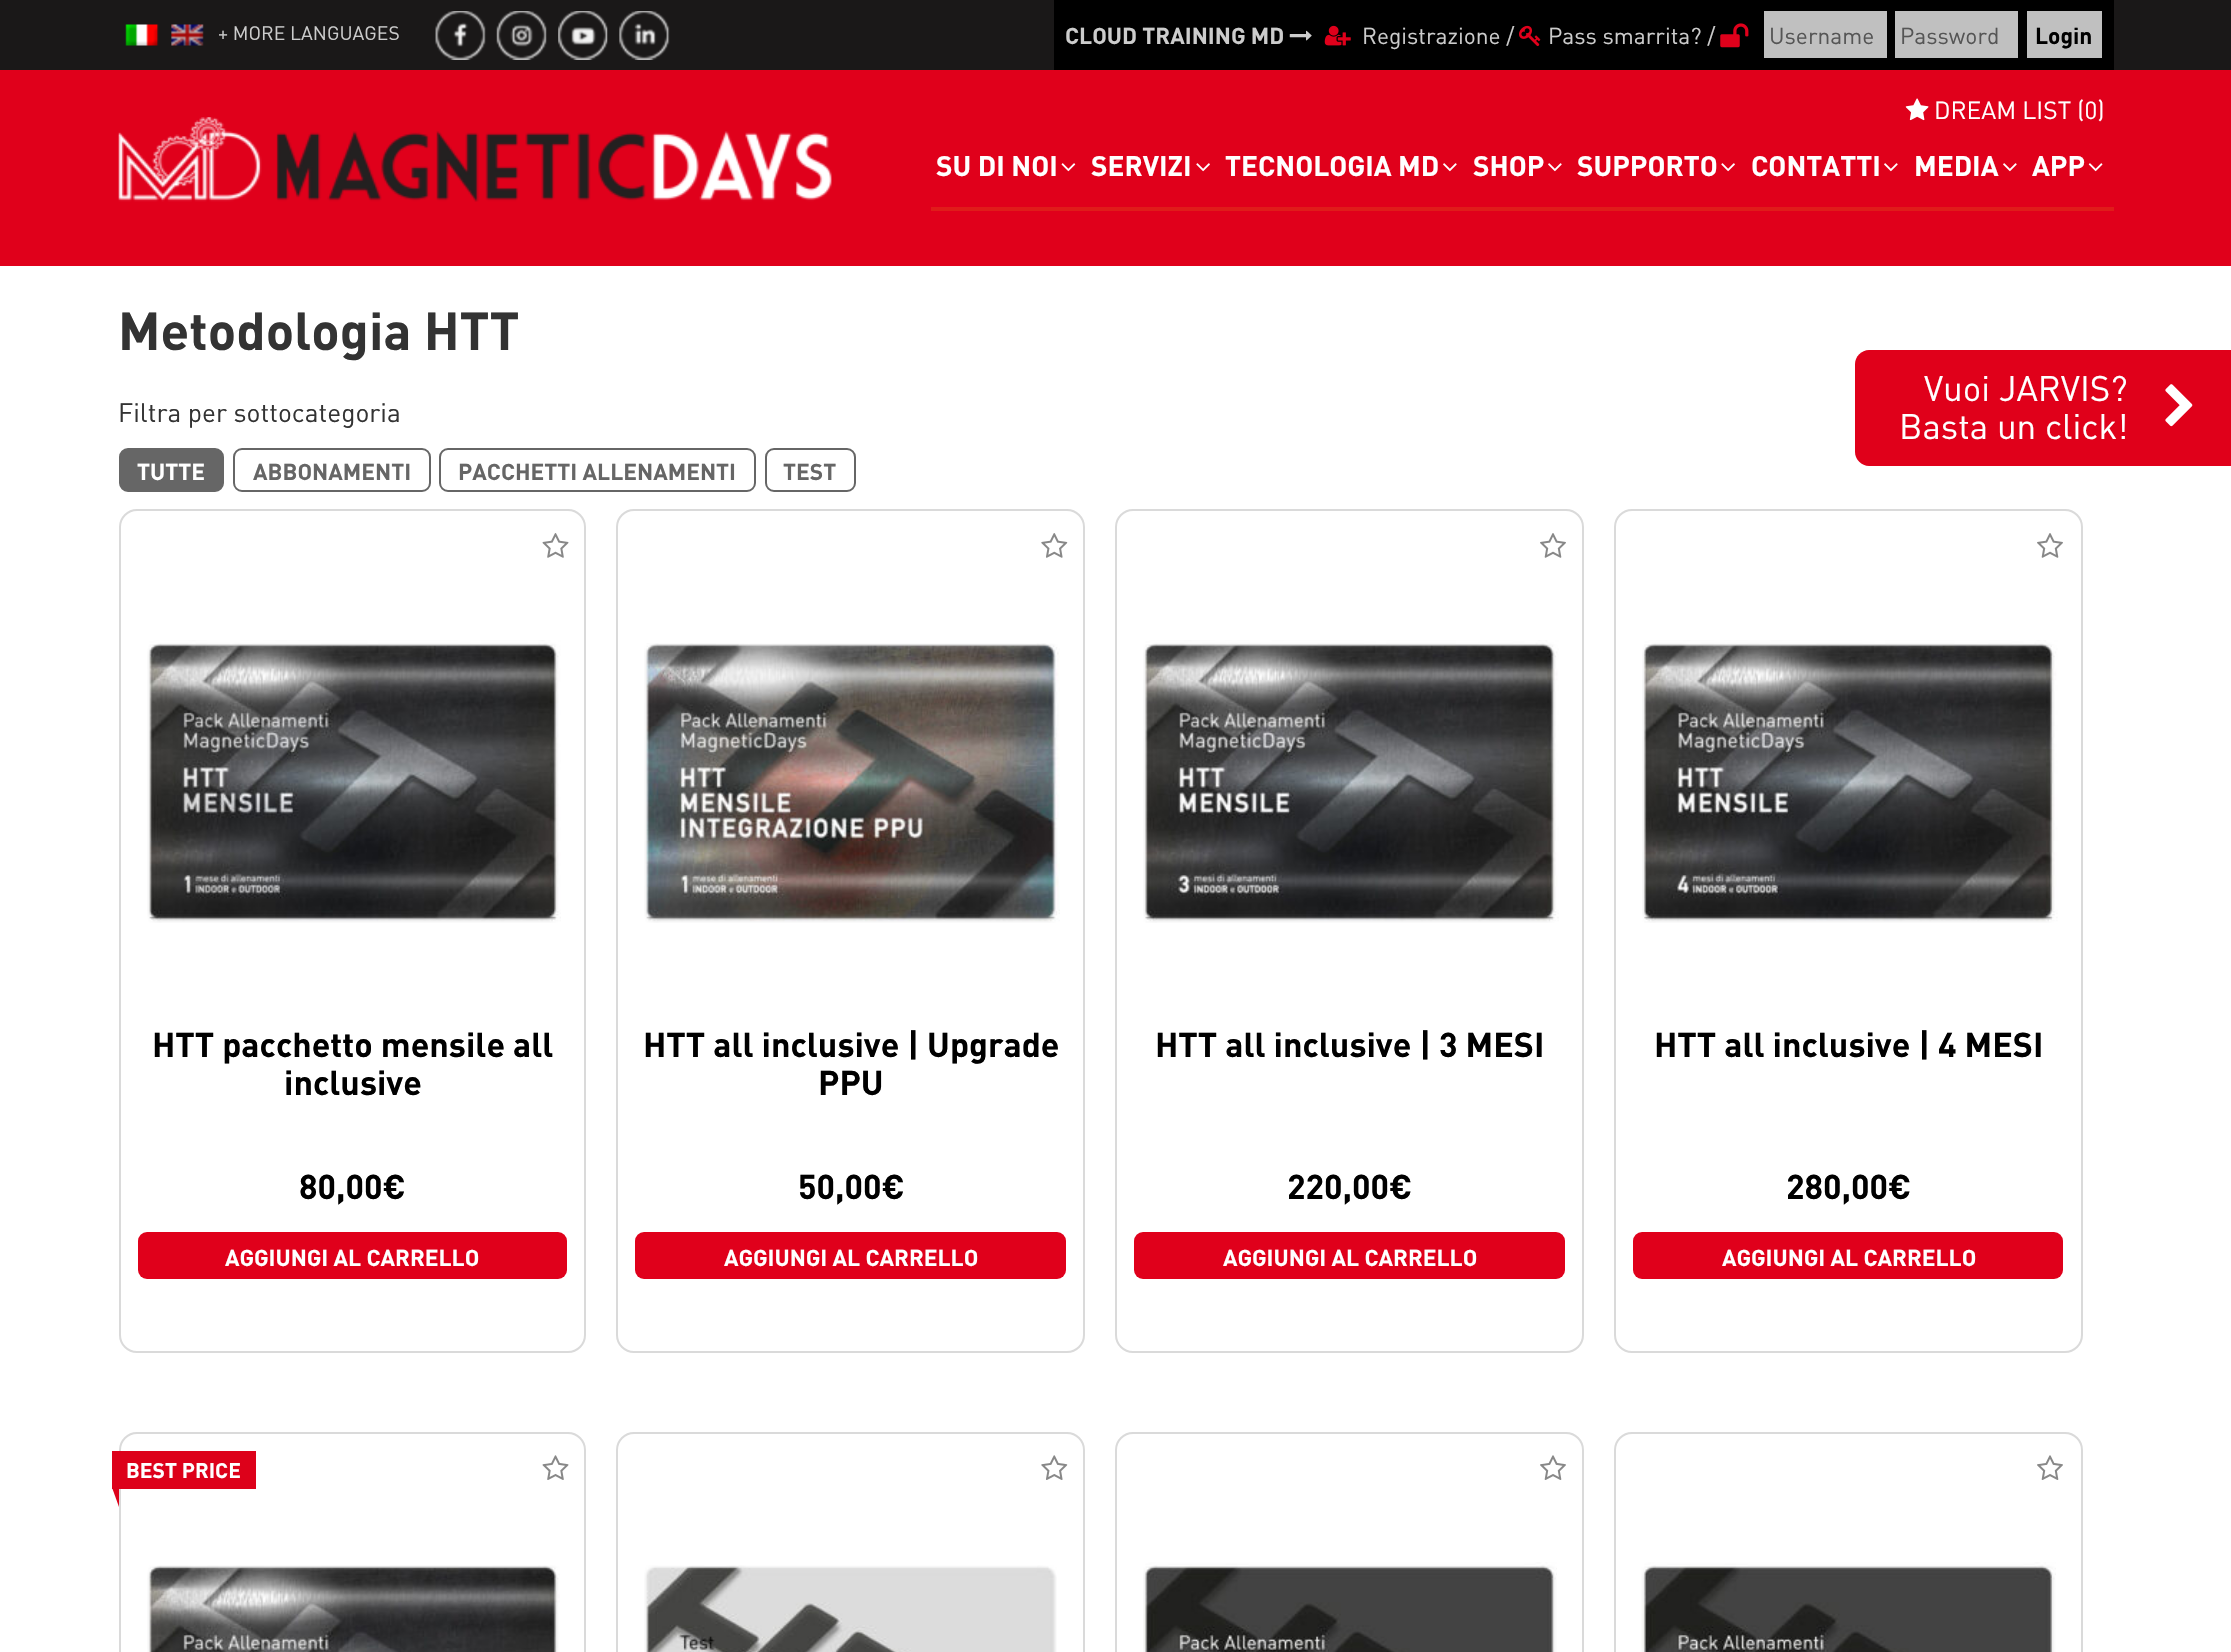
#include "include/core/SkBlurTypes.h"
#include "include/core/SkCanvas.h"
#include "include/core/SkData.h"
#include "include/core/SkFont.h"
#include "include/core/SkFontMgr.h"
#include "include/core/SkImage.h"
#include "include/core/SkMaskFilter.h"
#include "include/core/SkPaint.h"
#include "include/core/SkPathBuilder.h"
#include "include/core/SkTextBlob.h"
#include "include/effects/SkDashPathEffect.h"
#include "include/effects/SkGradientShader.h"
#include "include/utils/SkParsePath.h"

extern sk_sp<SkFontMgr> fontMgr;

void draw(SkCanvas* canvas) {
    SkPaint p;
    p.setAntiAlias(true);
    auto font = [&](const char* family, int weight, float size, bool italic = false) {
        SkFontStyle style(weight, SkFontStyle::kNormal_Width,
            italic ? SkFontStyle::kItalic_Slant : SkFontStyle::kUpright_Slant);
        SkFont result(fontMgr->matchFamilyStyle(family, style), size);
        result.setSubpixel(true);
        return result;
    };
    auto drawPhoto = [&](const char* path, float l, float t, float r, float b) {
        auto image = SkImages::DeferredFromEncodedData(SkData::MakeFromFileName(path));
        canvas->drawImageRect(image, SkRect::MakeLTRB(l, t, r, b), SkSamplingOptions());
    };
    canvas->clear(0xFFFFFFFF);
    p.setColor(0xFFE0001B);
    canvas->drawRect(SkRect::MakeLTRB(0, 70, 2231, 266), p);
    p.setColor(0xFF1A1818);
    canvas->drawRect(SkRect::MakeLTRB(0, 0, 2231, 70), p);
    drawPhoto("media/1.png", 125, 24, 159, 46);
    drawPhoto("media/2.png", 171, 24, 204, 46);
    auto font1 = font("DIN", 400, 19.25f);
    p.setColor(0xFFCCCCCC);
    canvas->drawString("+ MORE LANGUAGES", 218, 40, font1, p);
    drawPhoto("media/3.png", 435, 11, 486, 60);
    drawPhoto("media/4.png", 496, 11, 547, 60);
    drawPhoto("media/5.png", 558, 11, 608, 60);
    drawPhoto("media/6.png", 619, 11, 670, 60);
    p.setColor(0xFF000000);
    canvas->drawRect(SkRect::MakeLTRB(1054, 0, 2114, 70), p);
    auto font2 = font("DIN", 700, 22.75f);
    p.setColor(0xFFCCCCCC);
    canvas->drawString("CLOUD TRAINING MD", 1065, 44, font2, p);
    drawPhoto("media/7.png", 1289, 30, 1312, 41);
    drawPhoto("media/8.png", 1324, 25, 1351, 46);
    auto font3 = font("DIN", 400, 22.75f);
    canvas->drawString("Registrazione /", 1362, 44, font3, p);
    drawPhoto("media/9.png", 1519, 25, 1541, 47);
    canvas->drawString("Pass smarrita? /", 1548, 44, font3, p);
    drawPhoto("media/10.png", 1720, 23, 1749, 48);
    p.setColor(0xFFC0C0C0);
    canvas->drawRect(SkRect::MakeLTRB(1764, 11, 1887, 58), p);
    p.setColor(0xFF555555);
    canvas->drawString("Username", 1769, 44, font3, p);
    p.setColor(0xFFC0C0C0);
    canvas->drawRect(SkRect::MakeLTRB(1895, 11, 2018, 58), p);
    p.setColor(0xFF555555);
    canvas->drawString("Password", 1900, 44, font3, p);
    p.setColor(0xFFC0C0C0);
    canvas->drawRect(SkRect::MakeLTRB(2027, 11, 2102, 58), p);
    p.setColor(0xFF000000);
    canvas->drawString("Login", 2035, 44, font2, p);
    drawPhoto("media/11.png", 1905, 98, 1929, 121);
    auto font4 = font("DIN", 400, 24.5f);
    p.setColor(0xFFFFFFFF);
    canvas->drawString("DREAM LIST (0)", 1934, 119, font4, p);
    drawPhoto("media/12.png", 118, 117, 832, 202);
    p.setColor(0xFFE01C1A);
    canvas->drawRect(SkRect::MakeLTRB(931, 207, 2114, 211), p);
    auto font5 = font("DIN", 700, 28);
    p.setColor(0xFFFFFFFF);
    canvas->drawString("SU DI NOI", 936, 176, font5, p);
    drawPhoto("media/13.png", 1061, 163, 1076, 172);
    canvas->drawString("SERVIZI", 1091, 176, font5, p);
    drawPhoto("media/14.png", 1196, 163, 1210, 172);
    canvas->drawString("TECNOLOGIA MD", 1225, 176, font5, p);
    drawPhoto("media/15.png", 1443, 163, 1457, 172);
    canvas->drawString("SHOP", 1473, 176, font5, p);
    drawPhoto("media/15.png", 1548, 163, 1562, 172);
    canvas->drawString("SUPPORTO", 1577, 176, font5, p);
    drawPhoto("media/14.png", 1721, 163, 1735, 172);
    canvas->drawString("CONTATTI", 1751, 176, font5, p);
    drawPhoto("media/15.png", 1884, 163, 1898, 172);
    canvas->drawString("MEDIA", 1914, 176, font5, p);
    drawPhoto("media/15.png", 2003, 163, 2017, 172);
    canvas->drawString("APP", 2032, 176, font5, p);
    drawPhoto("media/16.png", 2088, 163, 2103, 172);
    auto font6 = font("DIN", 700, 52.5f);
    p.setColor(0xFF333333);
    canvas->drawString("Metodologia HTT", 118, 350, font6, p);
    auto font7 = font("DIN", 400, 26.25f);
    canvas->drawString("Filtra per sottocategoria", 118, 422, font7, p);
    p.setColor(0xFF666666);
    canvas->drawRoundRect(SkRect::MakeLTRB(120, 449, 223, 491), 8, 8, p);
    p.setStyle(SkPaint::kStroke_Style);
    p.setStrokeWidth(2);
    canvas->drawRoundRect(SkRect::MakeLTRB(120, 449, 223, 491), 8, 8, p);
    p.setStyle(SkPaint::kFill_Style);
    p.setColor(0xFFFFFFFF);
    canvas->drawString("TUTTE", 137, 480, font2, p);
    p.setStyle(SkPaint::kStroke_Style);
    p.setColor(0xFF666666);
    canvas->drawRoundRect(SkRect::MakeLTRB(234, 449, 430, 491), 8, 8, p);
    p.setStyle(SkPaint::kFill_Style);
    canvas->drawString("ABBONAMENTI", 253, 480, font2, p);
    p.setStyle(SkPaint::kStroke_Style);
    canvas->drawRoundRect(SkRect::MakeLTRB(440, 449, 755, 491), 8, 8, p);
    p.setStyle(SkPaint::kFill_Style);
    canvas->drawString("PACCHETTI ALLENAMENTI", 458, 480, font2, p);
    p.setStyle(SkPaint::kStroke_Style);
    canvas->drawRoundRect(SkRect::MakeLTRB(766, 449, 855, 491), 8, 8, p);
    p.setStyle(SkPaint::kFill_Style);
    canvas->drawString("TEST", 783, 480, font2, p);
    p.setStyle(SkPaint::kStroke_Style);
    p.setColor(0xFFDADADA);
    canvas->drawRoundRect(SkRect::MakeLTRB(120, 510, 585, 1352), 17, 17, p);
    drawPhoto("media/17.png", 542, 533, 569, 558);
    drawPhoto("media/18.png", 147, 640, 561, 923);
    auto font8 = font("DIN", 700, 34.1f);
    p.setStyle(SkPaint::kFill_Style);
    p.setColor(0xFF000000);
    {
        const struct { const char* s; float x, y; } items[] = {
            {"HTT pacchetto mensile all", 152, 1057},
            {"inclusive", 284, 1095},
            {"80,00€", 299, 1199},
        };
        for (auto [s, x, y] : items) {
            canvas->drawString(s, x, y, font8, p);
        }
    }
    p.setColor(0xFFE0001B);
    canvas->drawRoundRect(SkRect::MakeLTRB(138, 1232, 567, 1279), 9, 9, p);
    p.setColor(0xFFFFFFFF);
    canvas->drawString("AGGIUNGI AL CARRELLO", 225, 1266, font2, p);
    p.setStyle(SkPaint::kStroke_Style);
    p.setColor(0xFFDADADA);
    canvas->drawRoundRect(SkRect::MakeLTRB(617, 510, 1084, 1352), 17, 17, p);
    drawPhoto("media/19.png", 1041, 533, 1068, 558);
    drawPhoto("media/20.png", 644, 643, 1060, 923);
    p.setStyle(SkPaint::kFill_Style);
    p.setColor(0xFF000000);
    {
        const struct { const char* s; float x, y; } items[] = {
            {"HTT all inclusive | Upgrade", 643, 1057},
            {"PPU", 818, 1095},
            {"50,00€", 798, 1199},
        };
        for (auto [s, x, y] : items) {
            canvas->drawString(s, x, y, font8, p);
        }
    }
    p.setColor(0xFFE0001B);
    canvas->drawRoundRect(SkRect::MakeLTRB(635, 1232, 1066, 1279), 9, 9, p);
    p.setColor(0xFFFFFFFF);
    canvas->drawString("AGGIUNGI AL CARRELLO", 724, 1266, font2, p);
    p.setStyle(SkPaint::kStroke_Style);
    p.setColor(0xFFDADADA);
    canvas->drawRoundRect(SkRect::MakeLTRB(1116, 510, 1583, 1352), 17, 17, p);
    drawPhoto("media/21.png", 1540, 533, 1566, 558);
    drawPhoto("media/22.png", 1143, 640, 1559, 923);
    p.setStyle(SkPaint::kFill_Style);
    p.setColor(0xFF000000);
    canvas->drawString("HTT all inclusive | 3 MESI", 1155, 1057, font8, p);
    canvas->drawString("220,00€", 1287, 1199, font8, p);
    p.setColor(0xFFE0001B);
    canvas->drawRoundRect(SkRect::MakeLTRB(1134, 1232, 1565, 1279), 9, 9, p);
    p.setColor(0xFFFFFFFF);
    canvas->drawString("AGGIUNGI AL CARRELLO", 1223, 1266, font2, p);
    p.setStyle(SkPaint::kStroke_Style);
    p.setColor(0xFFDADADA);
    canvas->drawRoundRect(SkRect::MakeLTRB(1615, 510, 2082, 1352), 17, 17, p);
    drawPhoto("media/21.png", 2037, 533, 2063, 558);
    drawPhoto("media/23.png", 1642, 640, 2058, 923);
    p.setStyle(SkPaint::kFill_Style);
    p.setColor(0xFF000000);
    canvas->drawString("HTT all inclusive | 4 MESI", 1654, 1057, font8, p);
    canvas->drawString("280,00€", 1786, 1199, font8, p);
    p.setColor(0xFFE0001B);
    canvas->drawRoundRect(SkRect::MakeLTRB(1633, 1232, 2063, 1279), 9, 9, p);
    p.setColor(0xFFFFFFFF);
    canvas->drawString("AGGIUNGI AL CARRELLO", 1722, 1266, font2, p);
    p.setStyle(SkPaint::kStroke_Style);
    p.setColor(0xFFDADADA);
    canvas->drawRoundRect(SkRect::MakeLTRB(120, 1433, 585, 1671), 17, 17, p);
    p.setStyle(SkPaint::kFill_Style);
    p.setColor(0xFFDD011A);
    canvas->drawRect(SkRect::MakeLTRB(112, 1451, 256, 1489), p);
    auto font9 = font("DIN", 700, 21);
    p.setColor(0xFFFFFFFF);
    canvas->drawString("BEST PRICE", 126, 1478, font9, p);
    p.setColor(0xFFDD011A);
    canvas->drawPath(SkPathBuilder().moveTo(112, 1487.5f).lineTo(119, 1487.5f).lineTo(119, 1507).close().detach(), p);
    drawPhoto("media/24.png", 542, 1455, 569, 1480);
    drawPhoto("media/25.png", 147, 1565, 560, 1652);
    p.setStyle(SkPaint::kStroke_Style);
    p.setColor(0xFFDADADA);
    canvas->drawRoundRect(SkRect::MakeLTRB(617, 1433, 1084, 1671), 17, 17, p);
    drawPhoto("media/26.png", 1041, 1455, 1068, 1480);
    drawPhoto("media/27.png", 644, 1565, 1057, 1652);
    canvas->drawRoundRect(SkRect::MakeLTRB(1116, 1433, 1583, 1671), 17, 17, p);
    drawPhoto("media/28.png", 1540, 1455, 1566, 1480);
    drawPhoto("media/29.png", 1143, 1562, 1557, 1652);
    canvas->drawRoundRect(SkRect::MakeLTRB(1615, 1433, 2082, 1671), 17, 17, p);
    drawPhoto("media/28.png", 2037, 1455, 2063, 1480);
    drawPhoto("media/30.png", 1641, 1562, 2056, 1652);
    p.setStyle(SkPaint::kFill_Style);
    p.setColor(0xFFE0001A);
    canvas->drawPath(SkPathBuilder().moveTo(1869, 350).lineTo(2231, 350).lineTo(2231, 466).lineTo(1869, 466).cubicTo(1861.5f, 466, 1855, 459.5f, 1855, 452).lineTo(1855, 364).cubicTo(1855, 356.5f, 1861.5f, 350, 1869, 350).close().detach(), p);
    auto font10 = font("DIN", 400, 35);
    p.setColor(0xFFFFFFFF);
    canvas->drawString("Vuoi JARVIS?", 1924, 401, font10, p);
    canvas->drawString("Basta un click!", 1899, 439, font10, p);
    drawPhoto("media/31.png", 2165, 384, 2193, 427);
}
